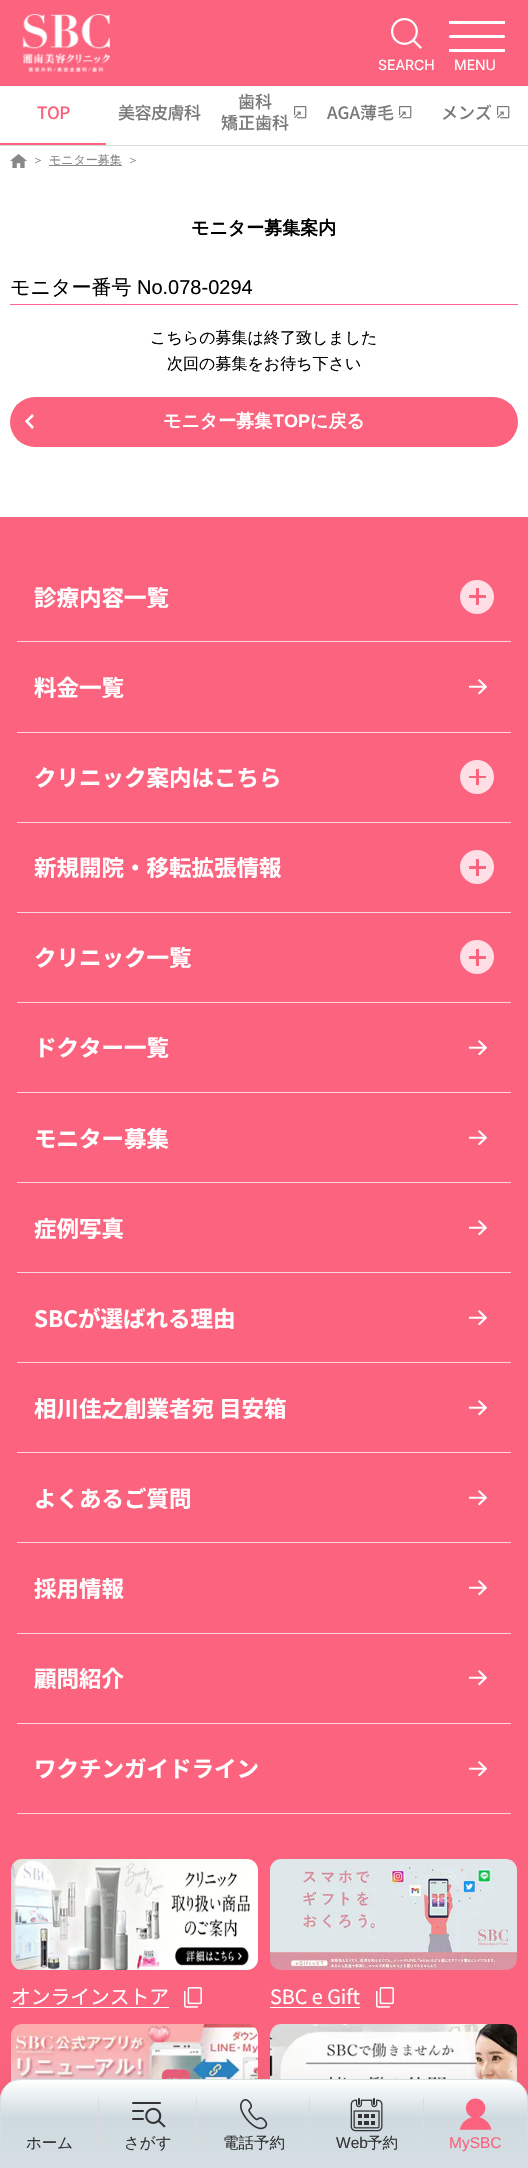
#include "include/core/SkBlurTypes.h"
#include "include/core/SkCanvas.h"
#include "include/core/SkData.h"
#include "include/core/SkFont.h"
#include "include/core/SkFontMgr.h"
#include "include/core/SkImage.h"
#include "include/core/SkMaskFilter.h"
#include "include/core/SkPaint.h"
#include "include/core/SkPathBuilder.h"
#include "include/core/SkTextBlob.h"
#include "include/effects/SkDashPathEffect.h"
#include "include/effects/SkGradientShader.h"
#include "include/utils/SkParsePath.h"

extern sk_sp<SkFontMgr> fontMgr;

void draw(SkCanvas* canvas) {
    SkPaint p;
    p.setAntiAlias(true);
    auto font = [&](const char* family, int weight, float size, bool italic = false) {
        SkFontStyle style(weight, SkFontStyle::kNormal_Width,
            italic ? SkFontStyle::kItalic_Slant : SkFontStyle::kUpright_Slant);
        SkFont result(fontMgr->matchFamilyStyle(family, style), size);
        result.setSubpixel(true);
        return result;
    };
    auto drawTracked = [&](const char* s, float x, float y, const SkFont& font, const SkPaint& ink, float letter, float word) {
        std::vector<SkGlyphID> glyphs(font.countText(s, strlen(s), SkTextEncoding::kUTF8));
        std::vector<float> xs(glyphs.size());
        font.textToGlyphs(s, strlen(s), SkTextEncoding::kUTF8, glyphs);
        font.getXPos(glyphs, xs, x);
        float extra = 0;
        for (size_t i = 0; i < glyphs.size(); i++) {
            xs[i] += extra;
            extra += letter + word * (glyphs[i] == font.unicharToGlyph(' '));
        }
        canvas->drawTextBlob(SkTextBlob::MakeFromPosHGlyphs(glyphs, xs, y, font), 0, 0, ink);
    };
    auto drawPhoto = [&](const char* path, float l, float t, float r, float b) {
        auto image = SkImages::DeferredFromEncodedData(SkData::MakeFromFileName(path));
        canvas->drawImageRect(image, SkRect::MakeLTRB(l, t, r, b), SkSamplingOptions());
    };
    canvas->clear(0xFFFFFFFF);
    p.setColor(0xFFFB637E);
    canvas->drawRect(SkRect::MakeLTRB(0, 0, 528, 86), p);
    p.setColor(0xFFDBDBDB);
    canvas->drawRect(SkRect::MakeLTRB(0, 145, 528, 146), p);
    drawPhoto("media/1.png", 22, 14, 110, 72);
    drawPhoto("media/2.png", 391, 18, 422, 49);
    auto font1 = font("Inter", 400, 14);
    p.setColor(0xFFFFFFFF);
    canvas->drawString("SEARCH", 378, 70, font1, p);
    canvas->drawRoundRect(SkRect::MakeLTRB(449, 35, 505, 38), 1.5f, 1.5f, p);
    canvas->drawRect(SkRect::MakeLTRB(449, 21, 505, 24), p);
    canvas->drawRect(SkRect::MakeLTRB(449, 49, 505, 52), p);
    canvas->drawString("MENU", 454, 70, font1, p);
    p.setColor(0xFFFB637E);
    canvas->drawRect(SkRect::MakeLTRB(0, 143, 106, 145), p);
    auto font2 = font("Noto Sans JP", 500, 17);
    p.setColor(0xFFFB627E);
    drawTracked("TOP", 37, 119, font2, p, -0.5f, 0);
    p.setColor(0xFF797979);
    drawTracked("美容皮膚科", 118, 119, font2, p, -0.5f, 0);
    canvas->drawString("歯科", 238, 108, font2, p);
    drawPhoto("media/3.png", 294, 106, 307, 119);
    canvas->drawString("矯正歯科", 221, 129, font2, p);
    canvas->drawString("AGA薄毛", 327, 119, font2, p);
    drawPhoto("media/3.png", 399, 106, 412, 119);
    canvas->drawString("メンズ", 441, 119, font2, p);
    drawPhoto("media/3.png", 497, 106, 510, 119);
    drawPhoto("media/4.png", 10, 154, 27, 168);
    auto font3 = font("WenQuanYi Zen Hei", 500, 12);
    p.setColor(0xFF888888);
    canvas->drawString("＞", 32, 164, font3, p);
    canvas->drawRect(SkRect::MakeLTRB(49, 165, 122, 166), p);
    canvas->drawString("モニター募集", 49, 164, font3, p);
    canvas->drawString("＞", 127, 164, font3, p);
    auto font4 = font("WenQuanYi Zen Hei", 700, 18);
    p.setColor(0xFF000000);
    canvas->drawString("モニター募集案内", 191, 234, font4, p);
    p.setColor(0xFFFF6699);
    canvas->drawRect(SkRect::MakeLTRB(10, 304, 518, 305), p);
    auto font5 = font("WenQuanYi Zen Hei", 500, 20);
    p.setColor(0xFF000000);
    canvas->drawString("モニター番号", 10, 294, font5, p);
    auto font6 = font("Liberation Sans", 400, 20);
    canvas->drawString("No.078-0294", 137, 294, font6, p);
    auto font7 = font("WenQuanYi Zen Hei", 500, 16);
    canvas->drawString("こちらの募集は終了致しました", 150, 343, font7, p);
    canvas->drawString("次回の募集をお待ち下さい", 167, 369, font7, p);
    p.setColor(0xFFFB637E);
    canvas->drawRoundRect(SkRect::MakeLTRB(10, 397, 518, 447), 25, 25, p);
    drawPhoto("media/5.png", 25, 414, 34, 429);
    p.setColor(0xFFFFFFFF);
    canvas->drawString("モニター募集", 163, 427, font4, p);
    auto font8 = font("Liberation Sans", 700, 18);
    canvas->drawString("TOP", 273, 427, font8, p);
    canvas->drawString("に戻る", 310, 427, font4, p);
    p.setColor(0xFFFB637E);
    canvas->drawRect(SkRect::MakeLTRB(0, 517, 528, 2100), p);
    p.setColor(0xFFFED0D8);
    canvas->drawRect(SkRect::MakeLTRB(17, 641, 511, 642), p);
    auto font9 = font("Noto Sans JP", 700, 22.5f);
    p.setColor(0xFFFFFFFF);
    canvas->drawString("診療内容一覧", 34, 606, font9, p);
    p.setColor(0xFFFFDEE6);
    canvas->drawCircle(477, 597, 17, p);
    {
        const struct { float l, t, r, b; SkColor color; } items[] = {
            {476, 588, 479, 605, 0xFFFB637E},
            {469, 595, 486, 598, 0xFFFB637E},
            {17, 732, 511, 733, 0xFFFED0D8},
        };
        for (auto [l, t, r, b, color] : items) {
            p.setColor(color);
            canvas->drawRect(SkRect::MakeLTRB(l, t, r, b), p);
        }
    }
    p.setColor(0xFFFFFFFF);
    canvas->drawString("料金一覧", 34, 696, font9, p);
    drawPhoto("media/6.png", 469, 679, 487, 695);
    p.setColor(0xFFFED0D8);
    canvas->drawRect(SkRect::MakeLTRB(17, 822, 511, 823), p);
    p.setColor(0xFFFFFFFF);
    canvas->drawString("クリニック案内はこちら", 34, 786, font9, p);
    p.setColor(0xFFFFDEE6);
    canvas->drawCircle(477, 777, 17, p);
    {
        const struct { float l, t, r, b; SkColor color; } items[] = {
            {476, 769, 479, 785, 0xFFFB637E},
            {469, 776, 486, 778, 0xFFFB637E},
            {17, 912, 511, 913, 0xFFFED0D8},
        };
        for (auto [l, t, r, b, color] : items) {
            p.setColor(color);
            canvas->drawRect(SkRect::MakeLTRB(l, t, r, b), p);
        }
    }
    p.setColor(0xFFFFFFFF);
    canvas->drawString("新規開院・移転拡張情報", 34, 876, font9, p);
    p.setColor(0xFFFFDEE6);
    canvas->drawCircle(477, 867, 17, p);
    {
        const struct { float l, t, r, b; SkColor color; } items[] = {
            {476, 859, 479, 876, 0xFFFB637E},
            {469, 866, 486, 869, 0xFFFB637E},
            {17, 1002, 511, 1003, 0xFFFED0D8},
        };
        for (auto [l, t, r, b, color] : items) {
            p.setColor(color);
            canvas->drawRect(SkRect::MakeLTRB(l, t, r, b), p);
        }
    }
    p.setColor(0xFFFFFFFF);
    canvas->drawString("クリニック一覧", 34, 966, font9, p);
    p.setColor(0xFFFFDEE6);
    canvas->drawCircle(477, 957, 17, p);
    {
        const struct { float l, t, r, b; SkColor color; } items[] = {
            {476, 949, 479, 966, 0xFFFB637E},
            {469, 956, 486, 959, 0xFFFB637E},
            {17, 1092, 511, 1093, 0xFFFED0D8},
        };
        for (auto [l, t, r, b, color] : items) {
            p.setColor(color);
            canvas->drawRect(SkRect::MakeLTRB(l, t, r, b), p);
        }
    }
    p.setColor(0xFFFFFFFF);
    canvas->drawString("ドクター一覧", 34, 1056, font9, p);
    drawPhoto("media/7.png", 469, 1040, 487, 1055);
    p.setColor(0xFFFED0D8);
    canvas->drawRect(SkRect::MakeLTRB(17, 1182, 511, 1183), p);
    p.setColor(0xFFFFFFFF);
    canvas->drawString("モニター募集", 34, 1147, font9, p);
    drawPhoto("media/7.png", 469, 1130, 487, 1145);
    p.setColor(0xFFFED0D8);
    canvas->drawRect(SkRect::MakeLTRB(17, 1272, 511, 1273), p);
    p.setColor(0xFFFFFFFF);
    canvas->drawString("症例写真", 34, 1237, font9, p);
    drawPhoto("media/7.png", 469, 1220, 487, 1235);
    p.setColor(0xFFFED0D8);
    canvas->drawRect(SkRect::MakeLTRB(17, 1362, 511, 1363), p);
    p.setColor(0xFFFFFFFF);
    canvas->drawString("SBCが選ばれる理由", 34, 1327, font9, p);
    drawPhoto("media/7.png", 469, 1310, 487, 1325);
    p.setColor(0xFFFED0D8);
    canvas->drawRect(SkRect::MakeLTRB(17, 1452, 511, 1453), p);
    p.setColor(0xFFFFFFFF);
    canvas->drawString("相川佳之創業者宛 目安箱", 34, 1417, font9, p);
    drawPhoto("media/6.png", 469, 1400, 487, 1416);
    p.setColor(0xFFFED0D8);
    canvas->drawRect(SkRect::MakeLTRB(17, 1542, 511, 1543), p);
    p.setColor(0xFFFFFFFF);
    canvas->drawString("よくあるご質問", 34, 1507, font9, p);
    drawPhoto("media/6.png", 469, 1490, 487, 1506);
    p.setColor(0xFFFED0D8);
    canvas->drawRect(SkRect::MakeLTRB(17, 1633, 511, 1634), p);
    p.setColor(0xFFFFFFFF);
    canvas->drawString("採用情報", 34, 1597, font9, p);
    drawPhoto("media/6.png", 469, 1580, 487, 1596);
    p.setColor(0xFFFED0D8);
    canvas->drawRect(SkRect::MakeLTRB(17, 1723, 511, 1724), p);
    p.setColor(0xFFFFFFFF);
    canvas->drawString("顧問紹介", 34, 1687, font9, p);
    drawPhoto("media/6.png", 469, 1670, 487, 1686);
    p.setColor(0xFFFED0D8);
    canvas->drawRect(SkRect::MakeLTRB(17, 1813, 511, 1814), p);
    p.setColor(0xFFFFFFFF);
    canvas->drawString("ワクチンガイドライン", 34, 1777, font9, p);
    drawPhoto("media/7.png", 469, 1761, 487, 1776);
    drawPhoto("media/8.png", 11, 1859, 258, 1970);
    auto font10 = font("Noto Sans JP", 400, 19.75f);
    canvas->drawString("オンラインストア", 11, 2004, font10, p);
    canvas->drawRect(SkRect::MakeLTRB(11, 2007, 169, 2008), p);
    drawPhoto("media/9.png", 184, 1987, 202, 2008);
    drawPhoto("media/10.png", 270, 1859, 517, 1970);
    canvas->drawString("SBC e Gift", 270, 2004, font10, p);
    canvas->drawRect(SkRect::MakeLTRB(270, 2007, 360, 2008), p);
    drawPhoto("media/9.png", 376, 1987, 394, 2008);
    drawPhoto("media/11.png", 11, 2024, 258, 2082);
    drawPhoto("media/12.png", 270, 2024, 517, 2082);
    p.setColor(0x0F000000);
    p.setMaskFilter(SkMaskFilter::MakeBlur(kNormal_SkBlurStyle, 11.5f));
    canvas->drawRoundRect(SkRect::MakeLTRB(0, 2076, 528, 2165), 21, 21, p);
    p.setMaskFilter(nullptr);
    canvas->save();
    canvas->clipPath(SkPathBuilder().moveTo(21, 2079).lineTo(507, 2079).cubicTo(518.5f, 2079, 528, 2088.5f, 528, 2100).lineTo(528, 2168).lineTo(0, 2168).lineTo(0, 2100).cubicTo(0, 2088.5f, 9.5f, 2079, 21, 2079).close().detach(), true);
    {
        const SkColor colors[] = {0xFFD4DEE3, 0xFFCFDAE0, 0xFFFFFFFF};
        const float stops[] = {0, 0.57f, 1};
        const SkPoint ends[] = {{264, 2167}, {264, 2080}};
        p.setShader(SkGradientShader::MakeLinear(ends, colors, stops, 3, SkTileMode::kClamp));
        p.setAlpha(255);
    }
    canvas->drawRect(SkRect::MakeLTRB(0, 2080, 528, 2167), p);
    canvas->restore();
    p.setStyle(SkPaint::kStroke_Style);
    p.setStrokeWidth(1);
    p.setShader(nullptr);
    p.setColor(0xFFD4DEE3);
    canvas->drawPath(SkPathBuilder().moveTo(21, 2079.5f).lineTo(507, 2079.5f).cubicTo(518.5f, 2079.5f, 527.5f, 2088.5f, 527.5f, 2100).lineTo(527.5f, 2167.5f).lineTo(0.5f, 2167.5f).lineTo(0.5f, 2100).cubicTo(0.5f, 2088.5f, 9.5f, 2079.5f, 21, 2079.5f).close().detach(), p);
    auto font11 = font("WenQuanYi Zen Hei", 500, 15.5f);
    p.setStyle(SkPaint::kFill_Style);
    p.setColor(0xFF333333);
    canvas->drawString("ホーム", 26, 2148, font11, p);
    p.setColor(0xFFDBDBDB);
    canvas->drawRect(SkRect::MakeLTRB(98, 2098, 99, 2149), p);
    drawPhoto("media/13.png", 132, 2102, 166, 2128);
    p.setColor(0xFF333333);
    canvas->drawString("さがす", 124, 2148, font11, p);
    p.setColor(0xFFDBDBDB);
    canvas->drawRect(SkRect::MakeLTRB(196, 2098, 197, 2149), p);
    drawPhoto("media/14.png", 240, 2099, 268, 2130);
    p.setColor(0xFF333333);
    canvas->drawString("電話予約", 223, 2148, font11, p);
    p.setColor(0xFFDBDBDB);
    canvas->drawRect(SkRect::MakeLTRB(309, 2098, 310, 2149), p);
    drawPhoto("media/15.png", 350, 2098, 383, 2132);
    auto font12 = font("Liberation Sans", 400, 15.5f);
    p.setColor(0xFF333333);
    canvas->drawString("Web", 336, 2148, font12, p);
    canvas->drawString("予約", 367, 2148, font11, p);
    p.setColor(0xFFDBDBDB);
    canvas->drawRect(SkRect::MakeLTRB(423, 2098, 424, 2149), p);
    drawPhoto("media/16.png", 459, 2098, 492, 2130);
    p.setColor(0xFFFB627E);
    canvas->drawString("MySBC", 449, 2148, font12, p);
}
